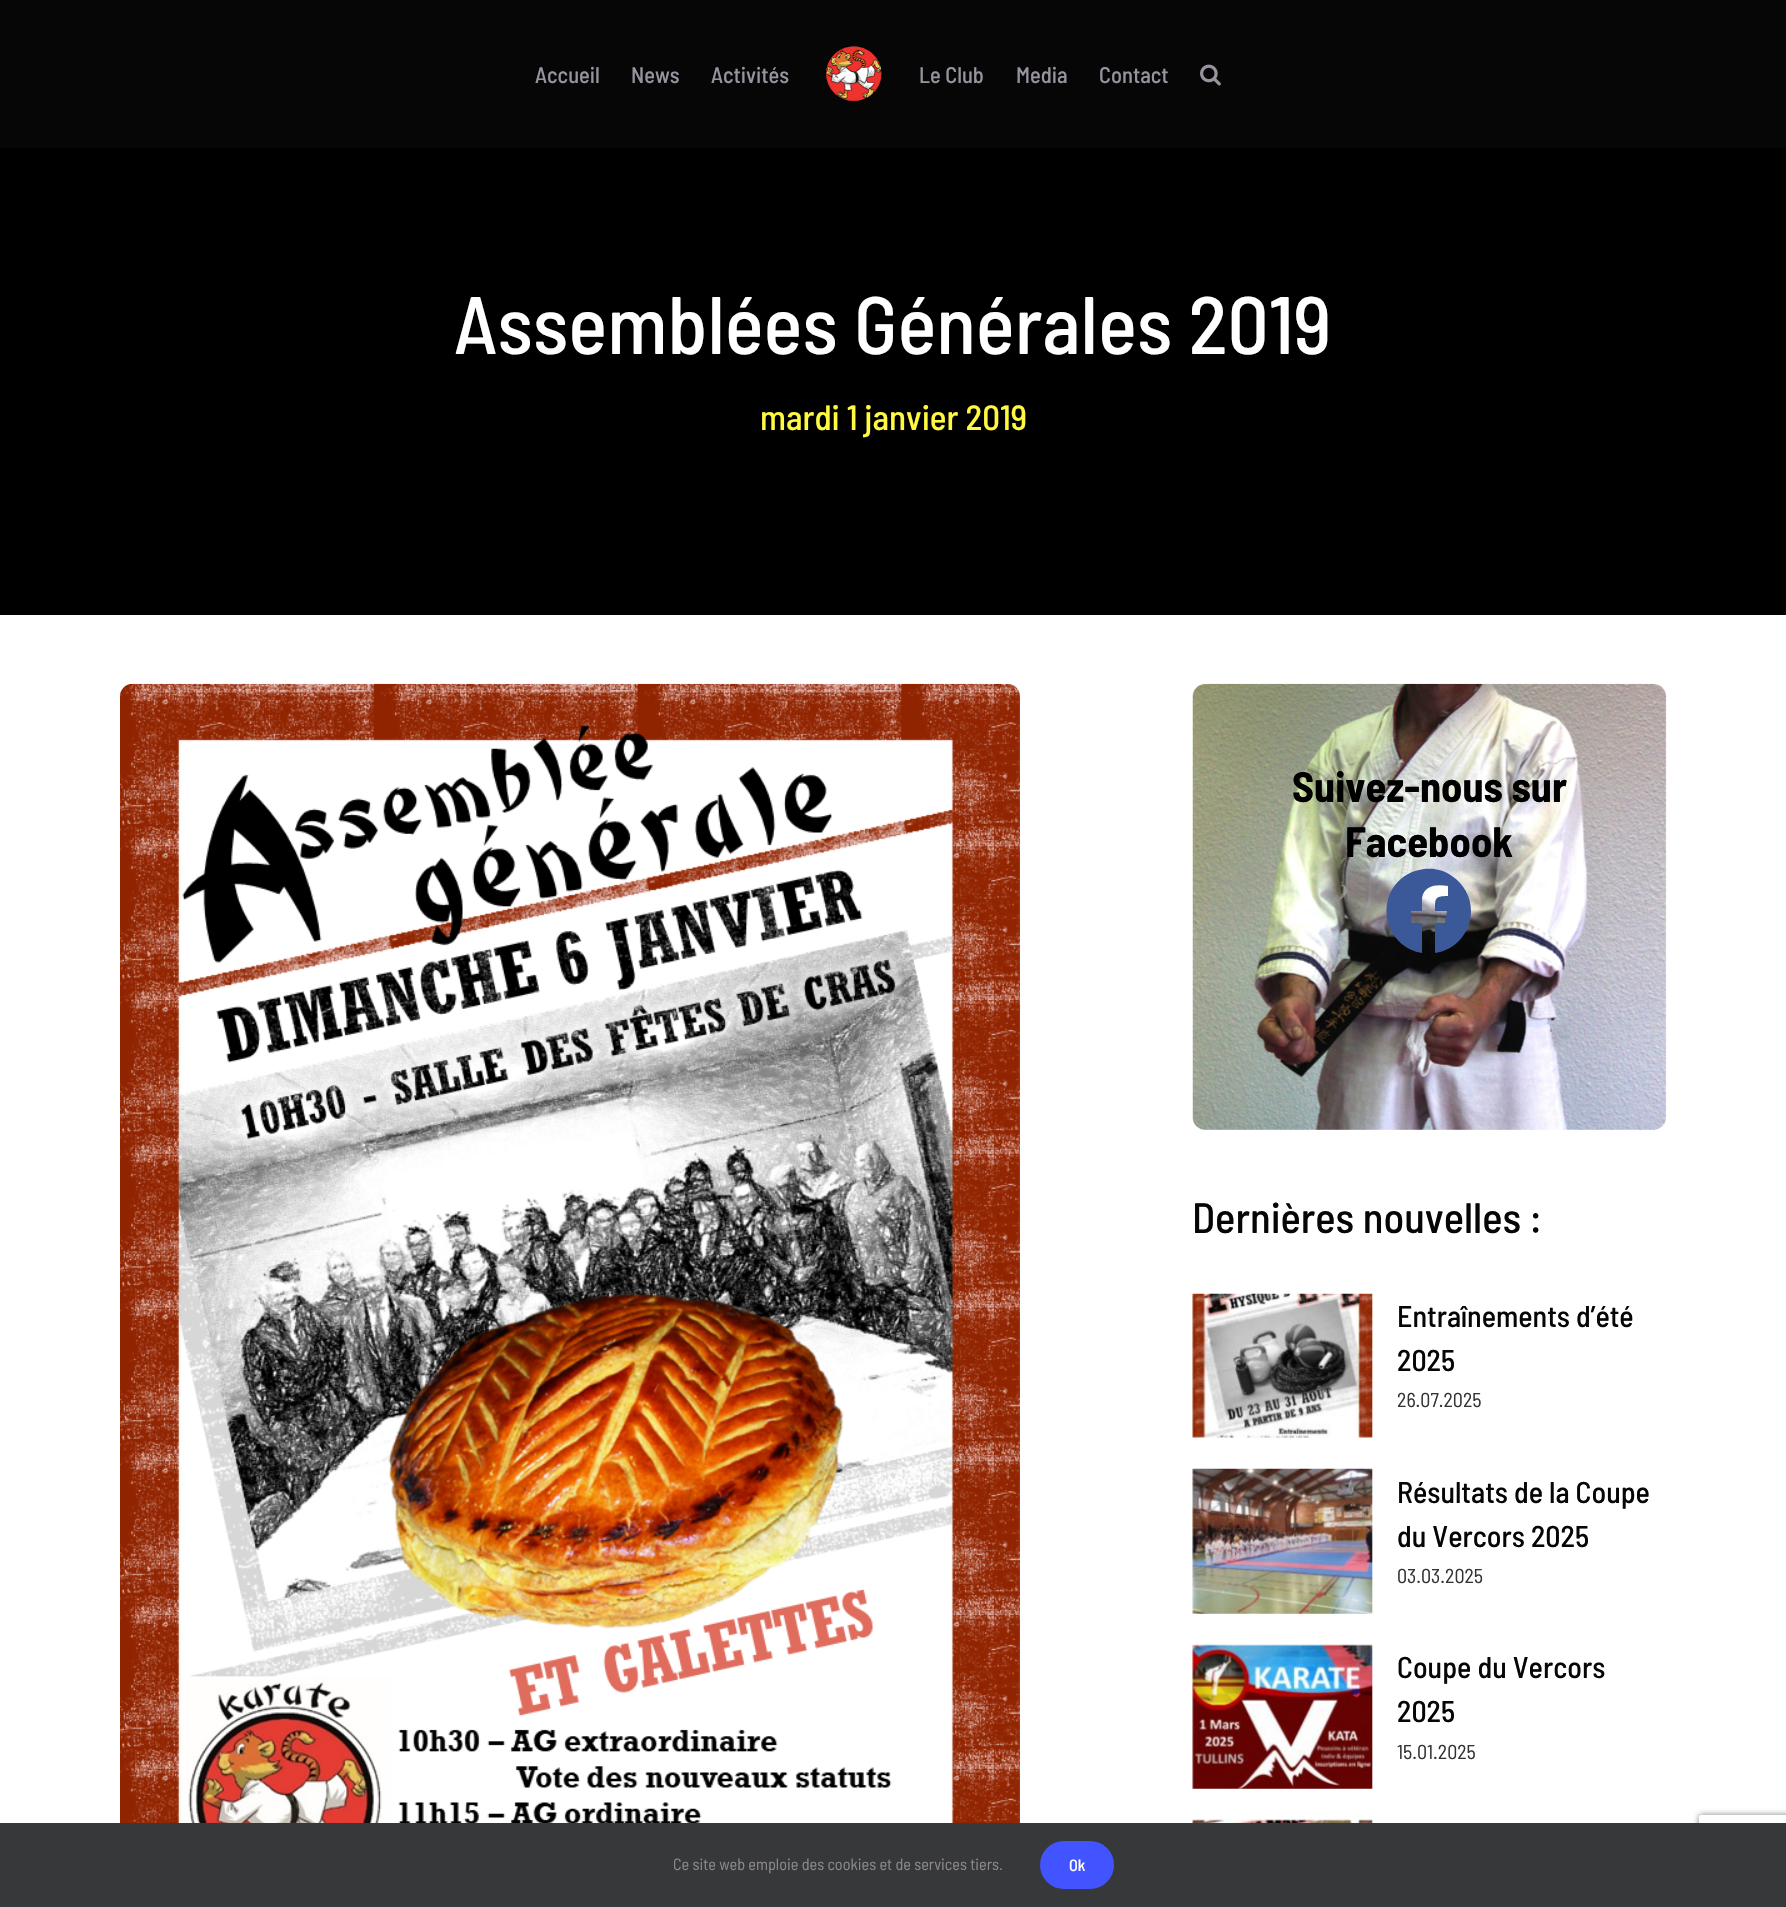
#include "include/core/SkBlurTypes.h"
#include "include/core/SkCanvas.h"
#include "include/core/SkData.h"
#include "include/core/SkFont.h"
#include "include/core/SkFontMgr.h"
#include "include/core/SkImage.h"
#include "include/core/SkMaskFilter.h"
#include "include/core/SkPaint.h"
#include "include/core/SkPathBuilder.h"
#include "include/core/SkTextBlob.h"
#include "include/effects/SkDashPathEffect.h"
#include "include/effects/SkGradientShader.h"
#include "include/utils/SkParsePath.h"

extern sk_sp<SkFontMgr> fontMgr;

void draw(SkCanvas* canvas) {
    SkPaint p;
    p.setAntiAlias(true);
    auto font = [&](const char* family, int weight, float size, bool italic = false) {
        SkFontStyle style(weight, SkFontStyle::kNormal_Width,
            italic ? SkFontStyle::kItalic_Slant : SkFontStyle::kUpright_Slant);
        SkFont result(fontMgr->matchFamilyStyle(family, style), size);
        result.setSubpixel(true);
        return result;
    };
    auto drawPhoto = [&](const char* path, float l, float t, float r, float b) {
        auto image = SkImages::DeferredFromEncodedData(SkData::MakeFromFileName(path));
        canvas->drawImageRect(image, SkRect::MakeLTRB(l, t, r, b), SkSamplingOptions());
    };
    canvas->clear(0xFFFFFFFF);
    p.setColor(0xFF060607);
    canvas->drawRect(SkRect::MakeLTRB(0, 0, 1786, 148), p);
    auto font1 = font("Barlow Semi Condensed", 500, 22.5f);
    p.setColor(0xFF98939F);
    {
        const struct { const char* s; float x, y; } items[] = {
            {"Accueil", 535, 83},
            {"News", 631, 83},
            {"Activités", 711, 83},
        };
        for (auto [s, x, y] : items) {
            canvas->drawString(s, x, y, font1, p);
        }
    }
    drawPhoto("media/1.png", 825, 46, 882, 102);
    {
        const struct { const char* s; float x, y; } items[] = {
            {"Le Club", 919, 83},
            {"Media", 1016, 83},
            {"Contact", 1099, 83},
        };
        for (auto [s, x, y] : items) {
            canvas->drawString(s, x, y, font1, p);
        }
    }
    drawPhoto("media/2.png", 1200, 64, 1221, 86);
    p.setColor(0xFF000000);
    canvas->drawRect(SkRect::MakeLTRB(0, 148, 1786, 615), p);
    auto font2 = font("Barlow Semi Condensed", 500, 81.25f);
    p.setColor(0xFFFFFFFF);
    canvas->drawString("Assemblées Générales 2019", 454, 354, font2, p);
    auto font3 = font("Barlow Semi Condensed", 500, 35);
    p.setColor(0xFFFFF941);
    canvas->drawString("mardi 1 janvier 2019", 760, 430, font3, p);
    drawPhoto("media/3.png", 120, 683, 1020, 1823);
    drawPhoto("media/4.png", 1192, 683, 1667, 1130);
    auto font4 = font("Barlow Semi Condensed", 700, 42.5f);
    p.setColor(0xFF000000);
    canvas->drawString("Suivez-nous sur", 1292, 802, font4, p);
    canvas->drawString("Facebook", 1345, 857, font4, p);
    p.setColor(0xFF3B5998);
    canvas->drawPath(SkPathBuilder().moveTo(1471, 911).cubicTo(1471, 932, 1456, 950, 1435, 953).lineTo(1435, 923).lineTo(1445, 923).lineTo(1447, 911).lineTo(1435, 911).cubicTo(1435, 899, 1434, 896, 1448, 896).lineTo(1448, 886).cubicTo(1437, 884, 1424, 885, 1422, 898).lineTo(1422, 911).lineTo(1411, 911).lineTo(1411, 923).lineTo(1422, 923).lineTo(1422, 953).cubicTo(1386, 947, 1374, 901, 1402, 878).cubicTo(1408, 873, 1416, 870, 1424, 869).cubicTo(1434, 868, 1444, 870, 1452, 876).cubicTo(1464, 884, 1471, 897, 1471, 911).close().detach(), p);
    auto font5 = font("Barlow Semi Condensed", 500, 42.5f);
    p.setColor(0xFF060607);
    canvas->drawString("Dernières nouvelles :", 1192, 1233, font5, p);
    drawPhoto("media/5.png", 1192, 1293, 1373, 1438);
    auto font6 = font("Barlow Semi Condensed", 500, 30);
    canvas->drawString("Entraînements d’été", 1397, 1327, font6, p);
    canvas->drawString("2025", 1397, 1371, font6, p);
    auto font7 = font("Barlow Semi Condensed", 400, 20);
    p.setColor(0xFF333333);
    canvas->drawString("26.07.2025", 1397, 1407, font7, p);
    drawPhoto("media/6.png", 1192, 1468, 1373, 1614);
    p.setColor(0xFF060607);
    canvas->drawString("Résultats de la Coupe", 1397, 1503, font6, p);
    canvas->drawString("du Vercors 2025", 1397, 1547, font6, p);
    p.setColor(0xFF333333);
    canvas->drawString("03.03.2025", 1397, 1583, font7, p);
    drawPhoto("media/7.png", 1192, 1644, 1373, 1789);
    p.setColor(0xFF060607);
    canvas->drawString("Coupe du Vercors", 1397, 1678, font6, p);
    canvas->drawString("2025", 1397, 1722, font6, p);
    p.setColor(0xFF333333);
    canvas->drawString("15.01.2025", 1397, 1759, font7, p);
    drawPhoto("media/8.png", 1192, 1819, 1373, 1823);
    canvas->save();
    canvas->clipPath(SkPathBuilder(SkPathFillType::kEvenOdd).moveTo(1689, 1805).lineTo(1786, 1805).lineTo(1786, 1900).lineTo(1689, 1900).close().moveTo(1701.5f, 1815).lineTo(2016.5f, 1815).cubicTo(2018, 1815, 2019, 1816, 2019, 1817.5f).lineTo(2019, 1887.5f).cubicTo(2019, 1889, 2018, 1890, 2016.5f, 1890).lineTo(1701.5f, 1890).cubicTo(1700, 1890, 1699, 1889, 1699, 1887.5f).lineTo(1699, 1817.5f).cubicTo(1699, 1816, 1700, 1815, 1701.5f, 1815).close().detach(), true);
    p.setColor(0xFF808080);
    p.setMaskFilter(SkMaskFilter::MakeBlur(kNormal_SkBlurStyle, 3));
    canvas->drawRoundRect(SkRect::MakeLTRB(1699, 1815, 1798, 1890), 2.5f, 2.5f, p);
    p.setMaskFilter(nullptr);
    canvas->restore();
    p.setColor(0xFF363839);
    canvas->drawRect(SkRect::MakeLTRB(0, 1823, 1786, 1907), p);
    auto font8 = font("Barlow Semi Condensed", 400, 16.25f);
    p.setColor(0xFF8C8989);
    canvas->drawString("Ce site web emploie des cookies et de services tiers.", 673, 1870, font8, p);
    p.setColor(0xFF4154FF);
    canvas->drawRoundRect(SkRect::MakeLTRB(1040, 1841, 1114, 1889), 24, 24, p);
    auto font9 = font("Barlow Semi Condensed", 500, 16.25f);
    p.setColor(0xFFFFFFFF);
    canvas->drawString("Ok", 1069, 1871, font9, p);
}
